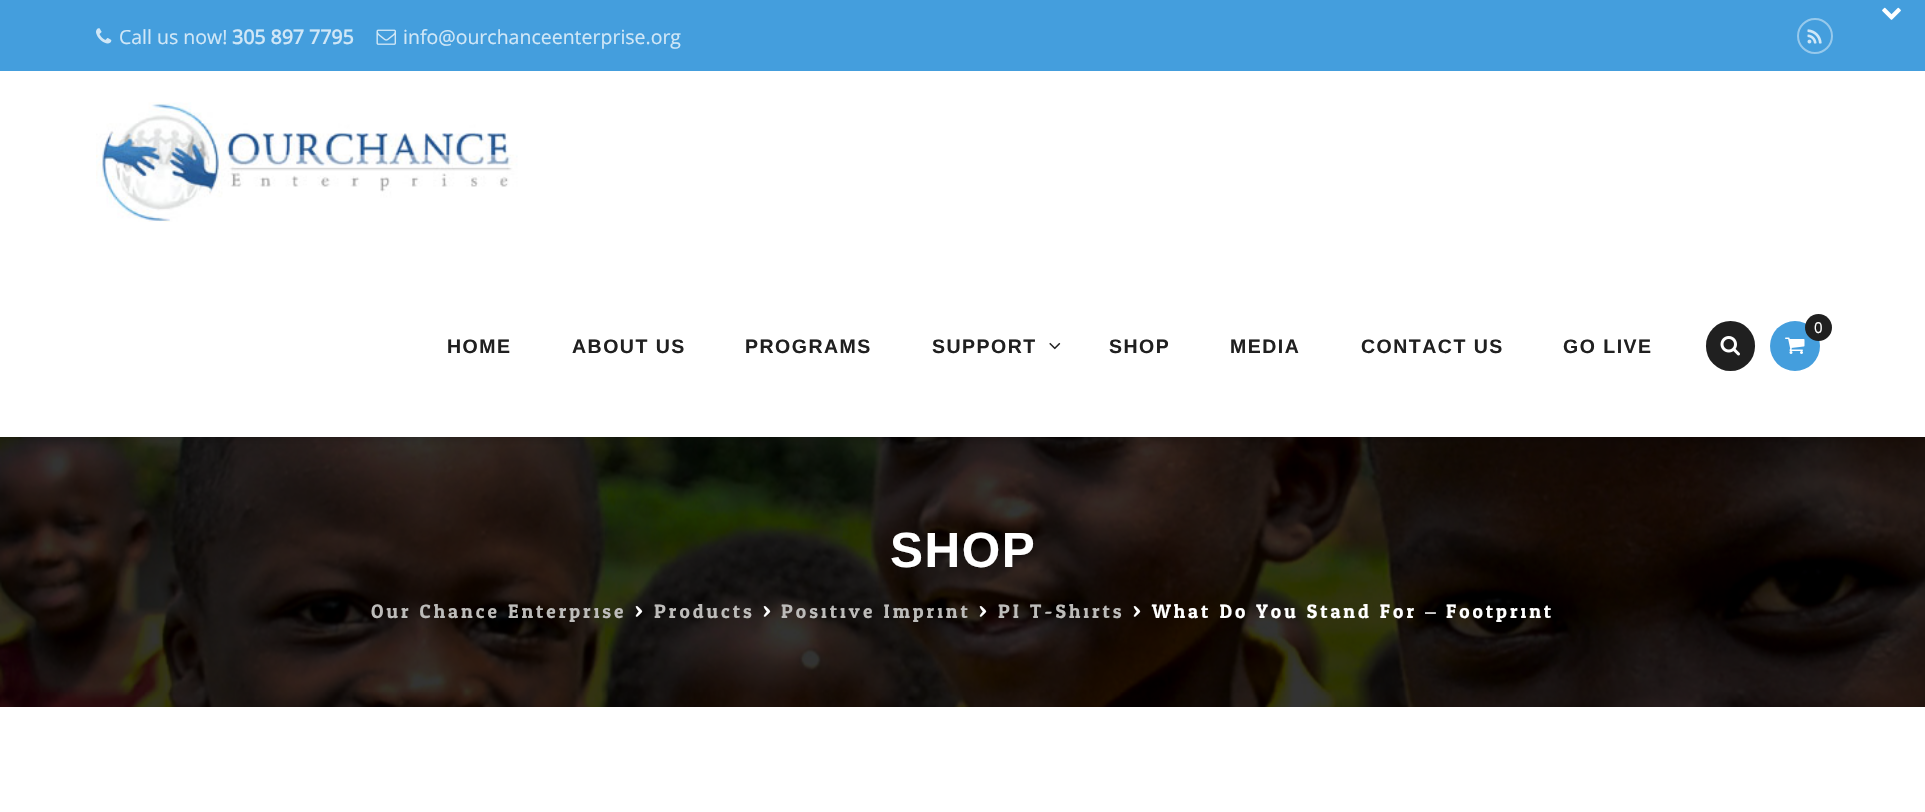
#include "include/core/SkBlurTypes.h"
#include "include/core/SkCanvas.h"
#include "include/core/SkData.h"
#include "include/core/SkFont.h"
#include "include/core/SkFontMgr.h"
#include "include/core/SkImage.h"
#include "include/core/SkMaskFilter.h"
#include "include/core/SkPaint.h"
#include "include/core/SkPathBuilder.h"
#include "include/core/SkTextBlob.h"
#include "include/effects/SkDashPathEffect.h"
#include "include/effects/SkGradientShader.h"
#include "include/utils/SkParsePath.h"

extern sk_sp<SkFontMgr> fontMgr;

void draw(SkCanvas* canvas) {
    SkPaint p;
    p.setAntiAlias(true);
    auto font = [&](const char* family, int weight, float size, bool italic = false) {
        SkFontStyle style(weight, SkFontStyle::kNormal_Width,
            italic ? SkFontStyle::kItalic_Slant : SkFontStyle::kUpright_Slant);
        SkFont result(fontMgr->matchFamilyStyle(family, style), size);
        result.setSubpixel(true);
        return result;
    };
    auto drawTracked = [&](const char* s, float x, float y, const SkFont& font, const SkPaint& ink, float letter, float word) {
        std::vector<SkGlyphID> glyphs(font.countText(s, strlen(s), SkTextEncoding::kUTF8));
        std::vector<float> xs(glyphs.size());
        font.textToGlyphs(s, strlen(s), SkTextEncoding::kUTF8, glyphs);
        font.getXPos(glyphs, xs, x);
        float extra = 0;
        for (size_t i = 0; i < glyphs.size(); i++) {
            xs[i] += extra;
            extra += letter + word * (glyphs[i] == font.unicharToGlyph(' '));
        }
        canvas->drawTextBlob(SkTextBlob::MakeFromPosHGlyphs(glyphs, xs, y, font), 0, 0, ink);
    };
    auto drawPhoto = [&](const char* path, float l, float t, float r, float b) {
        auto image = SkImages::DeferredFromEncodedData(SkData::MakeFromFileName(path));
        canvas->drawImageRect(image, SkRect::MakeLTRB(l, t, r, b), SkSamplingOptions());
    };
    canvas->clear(0xFFFFFFFF);
    drawPhoto("media/9.png", 0, 437, 1925, 707);
    p.setColor(0x33000000);
    p.setMaskFilter(SkMaskFilter::MakeBlur(kNormal_SkBlurStyle, 4));
    canvas->drawRect(SkRect::MakeLTRB(0, 72, 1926, 438), p);
    p.setMaskFilter(nullptr);
    p.setColor(0xFF449EDD);
    canvas->drawRect(SkRect::MakeLTRB(0, 0, 1925, 71), p);
    drawPhoto("media/1.png", 1882, 7, 1901, 20);
    drawPhoto("media/2.png", 96, 28, 112, 44);
    auto font1 = font("Open Sans", 400, 19.5f);
    p.setColor(0xFFD0E7F7);
    canvas->drawString("Call us now!", 119, 44, font1, p);
    auto font2 = font("Open Sans", 700, 19.5f);
    canvas->drawString("305 897 7795", 232, 44, font2, p);
    drawPhoto("media/3.png", 376, 29, 396, 45);
    canvas->drawString("info@ourchanceenterprise.org", 403, 44, font1, p);
    p.setStyle(SkPaint::kStroke_Style);
    p.setStrokeWidth(2);
    p.setColor(0xFF96C9EC);
    canvas->drawCircle(1815, 36, 17, p);
    drawPhoto("media/4.png", 1807, 29, 1822, 44);
    p.setStyle(SkPaint::kFill_Style);
    p.setColor(0xFFFFFFFF);
    canvas->drawRect(SkRect::MakeLTRB(0, 71, 1925, 437), p);
    drawPhoto("media/5.png", 96, 102, 518, 222);
    p.setColor(0xFF202020);
    canvas->drawRoundRect(SkRect::MakeLTRB(1706, 321, 1755, 371), 24.5f, 24.5f, p);
    drawPhoto("media/6.png", 1720, 336, 1740, 356);
    p.setColor(0xFF449EDD);
    canvas->drawCircle(1795, 346, 25, p);
    drawPhoto("media/7.png", 1785, 337, 1805, 354);
    p.setColor(0xFF202020);
    canvas->drawCircle(1818.5f, 327.5f, 13.5f, p);
    auto font3 = font("Open Sans", 400, 15);
    p.setColor(0xFFFFFFFF);
    canvas->drawString("0", 1814, 333, font3, p);
    auto font4 = font("Arimo", 700, 19.5f);
    p.setColor(0xFF202020);
    {
        const struct { const char* s; float x, y; } items[] = {
            {"HOME", 447, 353},
            {"ABOUT US", 572, 353},
            {"PROGRAMS", 745, 353},
            {"SUPPORT", 932, 353},
        };
        for (auto [s, x, y] : items) {
            drawTracked(s, x, y, font4, p, 1.5f, 0);
        }
    }
    drawPhoto("media/8.png", 1049, 342, 1061, 350);
    {
        const struct { const char* s; float x, y; } items[] = {
            {"SHOP", 1109, 353},
            {"MEDIA", 1230, 353},
            {"CONTACT US", 1361, 353},
            {"GO LIVE", 1563, 353},
        };
        for (auto [s, x, y] : items) {
            drawTracked(s, x, y, font4, p, 1.5f, 0);
        }
    }
    auto font5 = font("Arimo", 700, 49.5f);
    p.setColor(0xFFFFFFFF);
    drawTracked("SHOP", 890, 567, font5, p, 1.5f, 0);
    auto font6 = font("Odor Mean Chey", 400, 19.5f);
    p.setColor(0xFFBDBCBA);
    drawTracked("Our Chance Enterprise", 371, 618, font6, p, 3, 0);
    p.setColor(0xFFFFFFFF);
    drawTracked(">", 635, 618, font6, p, 3, 0);
    p.setColor(0xFFBDBCBA);
    drawTracked("Products", 654, 618, font6, p, 3, 0);
    p.setColor(0xFFFFFFFF);
    drawTracked(">", 763, 618, font6, p, 3, 0);
    p.setColor(0xFFBDBCBA);
    drawTracked("Positive Imprint", 781, 618, font6, p, 3, 0);
    p.setColor(0xFFFFFFFF);
    drawTracked(">", 979, 618, font6, p, 3, 0);
    p.setColor(0xFFBDBCBA);
    drawTracked("PI T-Shirts", 998, 618, font6, p, 3, 0);
    p.setColor(0xFFFFFFFF);
    drawTracked("> What Do You Stand For", 1133, 618, font6, p, 3, 0);
    auto font7 = font("Liberation Sans", 400, 19.5f);
    drawTracked("–", 1425, 618, font7, p, 3, 0);
    drawTracked("Footprint", 1446, 618, font6, p, 3, 0);
}
